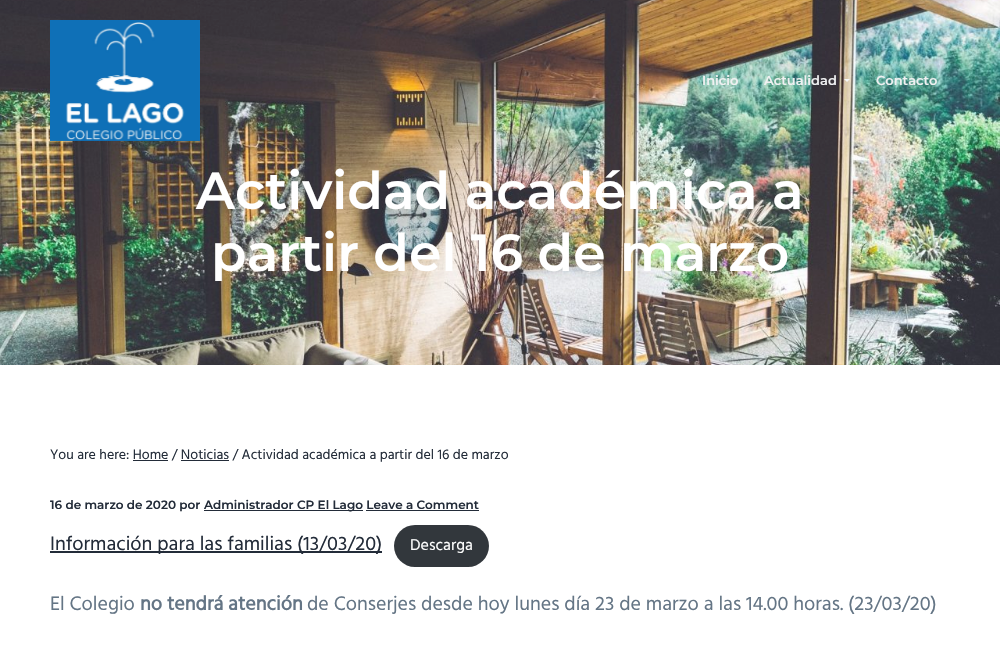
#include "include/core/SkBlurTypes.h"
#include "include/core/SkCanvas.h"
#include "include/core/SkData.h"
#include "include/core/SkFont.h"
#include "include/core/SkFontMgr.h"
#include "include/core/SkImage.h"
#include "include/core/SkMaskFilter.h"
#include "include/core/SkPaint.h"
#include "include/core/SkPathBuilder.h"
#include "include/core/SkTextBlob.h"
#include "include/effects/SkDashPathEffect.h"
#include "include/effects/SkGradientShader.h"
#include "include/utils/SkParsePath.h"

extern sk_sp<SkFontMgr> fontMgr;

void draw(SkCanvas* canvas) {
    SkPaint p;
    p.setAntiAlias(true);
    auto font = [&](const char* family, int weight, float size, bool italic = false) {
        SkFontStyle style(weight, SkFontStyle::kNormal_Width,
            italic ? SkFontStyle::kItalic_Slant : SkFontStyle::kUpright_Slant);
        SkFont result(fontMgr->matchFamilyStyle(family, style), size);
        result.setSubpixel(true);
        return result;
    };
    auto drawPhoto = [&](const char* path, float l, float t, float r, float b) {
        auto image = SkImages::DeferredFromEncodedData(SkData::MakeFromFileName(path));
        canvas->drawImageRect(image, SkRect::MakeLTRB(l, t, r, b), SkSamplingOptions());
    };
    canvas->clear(0xFFFFFFFF);
    drawPhoto("media/2.png", 0, 0, 1000, 365);
    drawPhoto("media/1.png", 50, 20, 200, 141);
    auto font1 = font("Montserrat", 100, 13);
    p.setColor(0xFFF0F1F2);
    canvas->drawString("Inicio", 702, 85, font1, p);
    canvas->drawString("Actualidad", 764, 85, font1, p);
    p.setColor(0xFFF6F7F8);
    canvas->drawPath(SkPathBuilder().moveTo(844, 79).lineTo(850, 79).lineTo(847, 82).close().detach(), p);
    p.setColor(0xFFF0F1F2);
    canvas->drawString("Contacto", 876, 85, font1, p);
    auto font2 = font("Montserrat", 100, 52);
    p.setColor(0xFFFFFFFF);
    canvas->drawString("Actividad académica a", 196, 209, font2, p);
    canvas->drawString("partir del 16 de marzo", 211, 271, font2, p);
    auto font3 = font("Hind", 400, 14);
    p.setColor(0xFF232C39);
    canvas->drawString("You are here: Home / Noticias / Actividad académica a partir del 16 de marzo", 50, 459, font3, p);
    canvas->drawRect(SkRect::MakeLTRB(133, 460, 168, 461), p);
    canvas->drawRect(SkRect::MakeLTRB(181, 460, 229, 461), p);
    auto font4 = font("Montserrat", 100, 12);
    canvas->drawString("16 de marzo de 2020 por", 50, 509, font4, p);
    canvas->drawRect(SkRect::MakeLTRB(204, 510, 363, 511), p);
    canvas->drawString("Administrador CP El Lago Leave a Comment", 204, 509, font4, p);
    canvas->drawRect(SkRect::MakeLTRB(366, 510, 479, 511), p);
    canvas->drawRect(SkRect::MakeLTRB(50, 551, 382, 553), p);
    auto font5 = font("Hind", 400, 20);
    canvas->drawString("Información para las familias (13/03/20)", 50, 550, font5, p);
    p.setColor(0xFF32373C);
    canvas->drawRoundRect(SkRect::MakeLTRB(394, 525, 489, 567), 21, 21, p);
    auto font6 = font("Hind", 400, 16);
    p.setColor(0xFFFFFFFF);
    canvas->drawString("Descarga", 410, 550, font6, p);
    p.setColor(0xFF647585);
    canvas->drawString("El Colegio", 50, 610, font5, p);
    auto font7 = font("Hind", 700, 20);
    canvas->drawString("no tendrá atención", 140, 610, font7, p);
    canvas->drawString("de Conserjes desde hoy lunes día 23 de marzo a las 14.00 horas. (23/03/20)", 307, 610, font5, p);
}
